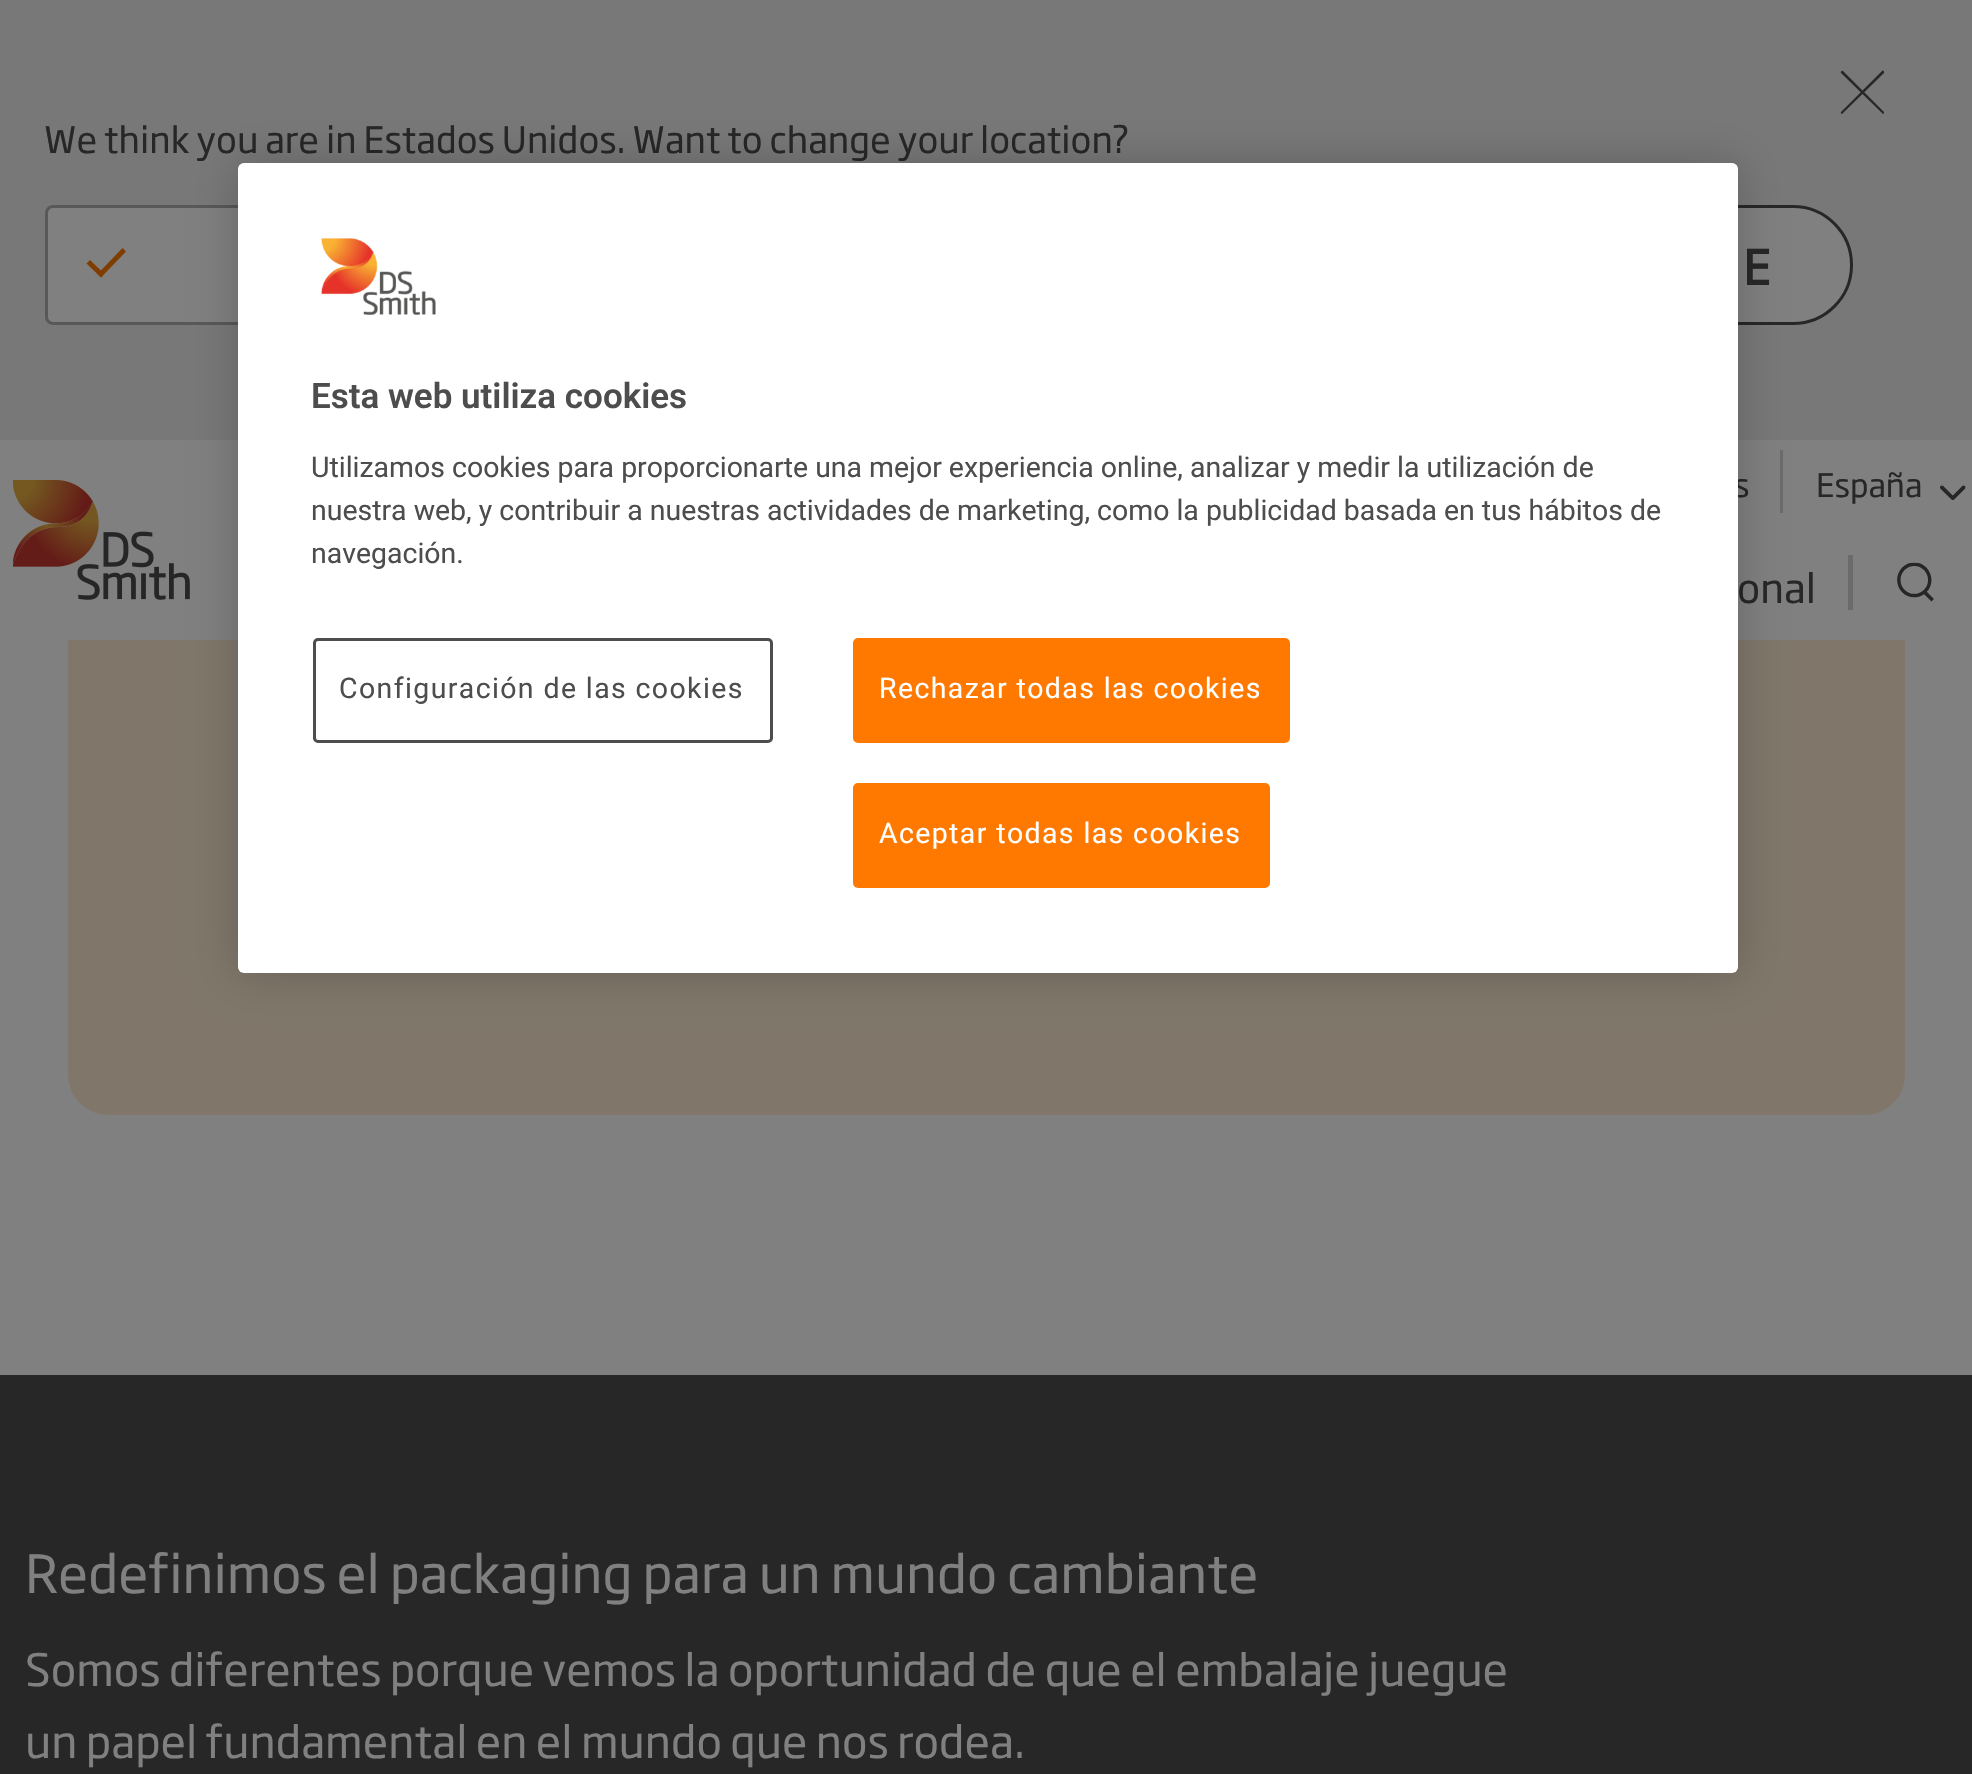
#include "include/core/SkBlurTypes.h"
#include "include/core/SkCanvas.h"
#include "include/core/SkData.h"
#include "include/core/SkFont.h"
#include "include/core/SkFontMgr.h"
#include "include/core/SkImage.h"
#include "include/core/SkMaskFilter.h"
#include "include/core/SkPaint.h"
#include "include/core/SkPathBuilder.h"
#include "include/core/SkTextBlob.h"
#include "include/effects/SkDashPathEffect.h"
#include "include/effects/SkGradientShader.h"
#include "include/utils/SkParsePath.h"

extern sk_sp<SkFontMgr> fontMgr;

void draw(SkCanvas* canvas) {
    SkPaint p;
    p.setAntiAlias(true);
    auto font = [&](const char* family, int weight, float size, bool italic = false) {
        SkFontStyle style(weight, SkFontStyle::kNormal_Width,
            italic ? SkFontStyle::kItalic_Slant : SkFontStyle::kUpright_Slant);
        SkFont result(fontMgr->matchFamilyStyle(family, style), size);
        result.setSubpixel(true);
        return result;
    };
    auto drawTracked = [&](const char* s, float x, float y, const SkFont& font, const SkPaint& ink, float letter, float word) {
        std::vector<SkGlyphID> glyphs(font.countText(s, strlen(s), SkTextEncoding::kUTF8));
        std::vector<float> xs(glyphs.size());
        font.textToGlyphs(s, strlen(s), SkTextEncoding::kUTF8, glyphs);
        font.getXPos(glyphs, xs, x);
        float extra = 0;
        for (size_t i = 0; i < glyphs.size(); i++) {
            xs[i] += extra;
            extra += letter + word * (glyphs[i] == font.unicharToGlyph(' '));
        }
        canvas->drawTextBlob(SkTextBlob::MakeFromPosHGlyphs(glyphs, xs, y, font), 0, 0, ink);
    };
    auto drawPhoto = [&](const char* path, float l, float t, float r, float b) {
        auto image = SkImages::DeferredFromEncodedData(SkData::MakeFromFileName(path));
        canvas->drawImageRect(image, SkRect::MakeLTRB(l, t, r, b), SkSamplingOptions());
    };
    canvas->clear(0xFF808080);
    p.setColor(0xFF80776A);
    canvas->drawRoundRect(SkRect::MakeLTRB(68, -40, 1905, 1115), 40, 40, p);
    p.setColor(0xFF808080);
    canvas->drawRect(SkRect::MakeLTRB(68, 440, 1905, 640), p);
    p.setColor(0xFF787878);
    canvas->drawRect(SkRect::MakeLTRB(0, 0, 1972, 440), p);
    p.setColor(0xFF272727);
    canvas->drawPath(SkPathBuilder().moveTo(1843, 71).lineTo(1884, 112).cubicTo(1884, 112, 1884, 114, 1883, 114).lineTo(1882, 113).lineTo(1841, 73).cubicTo(1840, 72, 1842, 70, 1843, 71).close().detach(), p);
    canvas->drawPath(SkPathBuilder().moveTo(1841, 112).lineTo(1882, 71).cubicTo(1883, 70, 1884, 71, 1884, 72).lineTo(1884, 73).lineTo(1843, 113).cubicTo(1842, 115, 1840, 113, 1841, 112).close().detach(), p);
    auto font1 = font("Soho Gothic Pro", 400, 36);
    canvas->drawString("We think you are in Estados Unidos. Want to change your location?", 44, 153, font1, p);
    p.setColor(0xFF808080);
    canvas->drawRoundRect(SkRect::MakeLTRB(46.5f, 206.5f, 1361.5f, 323.5f), 6.5f, 6.5f, p);
    p.setStyle(SkPaint::kStroke_Style);
    p.setStrokeWidth(3);
    p.setColor(0xFF595858);
    canvas->drawRoundRect(SkRect::MakeLTRB(46.5f, 206.5f, 1361.5f, 323.5f), 6.5f, 6.5f, p);
    p.setStyle(SkPaint::kFill_Style);
    p.setColor(0xFF803D00);
    canvas->drawPath(SkPathBuilder().moveTo(126, 251.5f).lineTo(101, 277.5f).lineTo(97.5f, 274).lineTo(122.5f, 248).close().detach(), p);
    canvas->drawPath(SkPathBuilder().moveTo(104.5f, 274).lineTo(101, 277.5f).lineTo(86.5f, 263.5f).lineTo(90, 260).close().detach(), p);
    p.setColor(0xFF808080);
    canvas->drawRoundRect(SkRect::MakeLTRB(1464.5f, 206.5f, 1851.5f, 323.5f), 58.5f, 58.5f, p);
    p.setStyle(SkPaint::kStroke_Style);
    p.setColor(0xFF272727);
    canvas->drawRoundRect(SkRect::MakeLTRB(1464.5f, 206.5f, 1851.5f, 323.5f), 58.5f, 58.5f, p);
    auto font2 = font("Soho Gothic Pro", 700, 47);
    p.setStyle(SkPaint::kFill_Style);
    canvas->drawString("E", 1743, 285, font2, p);
    drawPhoto("media/1.png", 13, 480, 190, 600);
    auto font3 = font("Soho Gothic Pro", 400, 32);
    canvas->drawString("s", 1734, 497, font3, p);
    p.setColor(0xFF6B6B6B);
    canvas->drawRect(SkRect::MakeLTRB(1780, 450, 1783, 513), p);
    p.setColor(0xFF272727);
    canvas->drawString("España", 1816, 497, font3, p);
    drawPhoto("media/2.png", 1940, 485, 1966, 500);
    auto font4 = font("Soho Gothic Pro", 400, 40);
    canvas->drawString("onal", 1737, 603, font4, p);
    p.setColor(0xFF6B6B6B);
    canvas->drawRect(SkRect::MakeLTRB(1848, 555, 1853, 610), p);
    drawPhoto("media/3.png", 1897, 562, 1934, 602);
    p.setColor(0x33000000);
    p.setMaskFilter(SkMaskFilter::MakeBlur(kNormal_SkBlurStyle, 22.5f));
    canvas->drawRoundRect(SkRect::MakeLTRB(238, 163, 1738, 973), 6, 6, p);
    p.setMaskFilter(nullptr);
    p.setColor(0xFFFFFFFF);
    canvas->drawRoundRect(SkRect::MakeLTRB(238, 163, 1738, 973), 6, 6, p);
    drawPhoto("media/4.png", 321, 238, 436, 315);
    auto font5 = font("Roboto", 600, 35);
    p.setColor(0xFF4D4D4D);
    canvas->drawString("Esta web utiliza cookies", 311, 408, font5, p);
    auto font6 = font("Roboto", 400, 28.45f);
    {
        const struct { const char* s; float x, y; } items[] = {
            {"Utilizamos cookies para proporcionarte una mejor experiencia online, analizar y medir la utilización de", 311, 477},
            {"nuestra web, y contribuir a nuestras actividades de marketing, como la publicidad basada en tus hábitos de", 311, 520},
            {"navegación.", 311, 563},
        };
        for (auto [s, x, y] : items) {
            canvas->drawString(s, x, y, font6, p);
        }
    }
    p.setStyle(SkPaint::kStroke_Style);
    canvas->drawRoundRect(SkRect::MakeLTRB(314.5f, 639.5f, 771.5f, 741.5f), 3.5f, 3.5f, p);
    p.setStyle(SkPaint::kFill_Style);
    drawTracked("Configuración de las cookies", 339, 698, font6, p, 1.4f, 0);
    p.setColor(0xFFFF7900);
    canvas->drawRoundRect(SkRect::MakeLTRB(854.5f, 639.5f, 1288.5f, 741.5f), 3.5f, 3.5f, p);
    p.setStyle(SkPaint::kStroke_Style);
    canvas->drawRoundRect(SkRect::MakeLTRB(854.5f, 639.5f, 1288.5f, 741.5f), 3.5f, 3.5f, p);
    p.setStyle(SkPaint::kFill_Style);
    p.setColor(0xFFFFFFFF);
    drawTracked("Rechazar todas las cookies", 879, 698, font6, p, 1.4f, 0);
    p.setColor(0xFFFF7900);
    canvas->drawRoundRect(SkRect::MakeLTRB(854.5f, 784.5f, 1268.5f, 886.5f), 3.5f, 3.5f, p);
    p.setStyle(SkPaint::kStroke_Style);
    canvas->drawRoundRect(SkRect::MakeLTRB(854.5f, 784.5f, 1268.5f, 886.5f), 3.5f, 3.5f, p);
    p.setStyle(SkPaint::kFill_Style);
    p.setColor(0xFFFFFFFF);
    drawTracked("Aceptar todas las cookies", 879, 843, font6, p, 1.4f, 0);
    p.setColor(0xFF272727);
    canvas->drawRect(SkRect::MakeLTRB(0, 1375, 1972, 1774), p);
    auto font7 = font("Soho Gothic Pro", 400, 52);
    p.setColor(0xFF808080);
    canvas->drawString("Redefinimos el packaging para un mundo cambiante", 25, 1593, font7, p);
    auto font8 = font("Soho Gothic Pro", 400, 44);
    canvas->drawString("Somos diferentes porque vemos la oportunidad de que el embalaje juegue", 25, 1686, font8, p);
    canvas->drawString("un papel fundamental en el mundo que nos rodea.", 25, 1758, font8, p);
}
